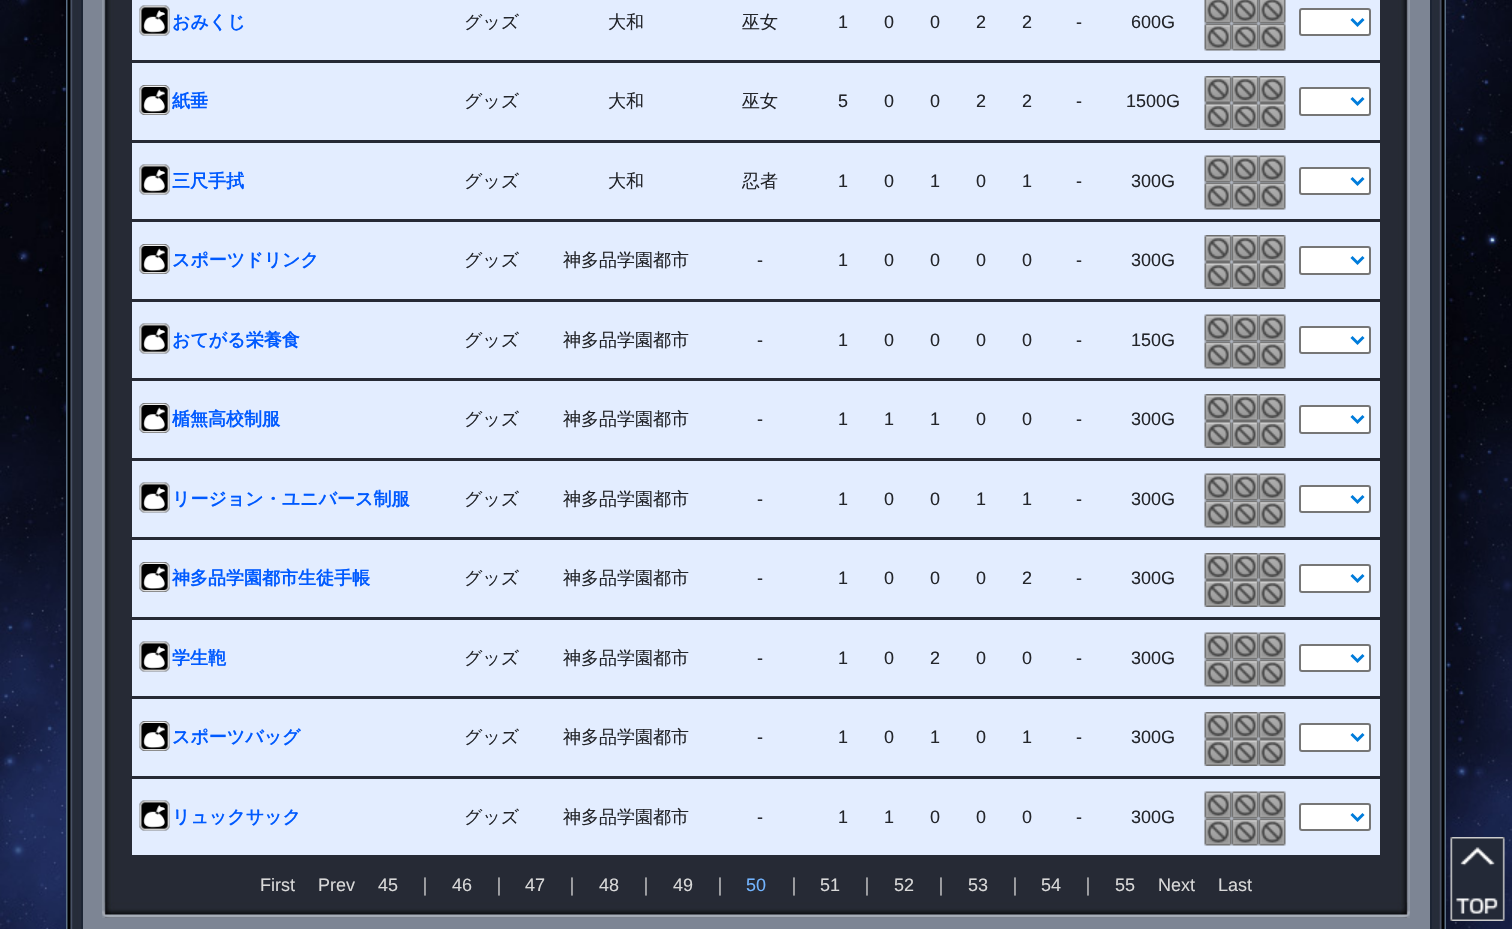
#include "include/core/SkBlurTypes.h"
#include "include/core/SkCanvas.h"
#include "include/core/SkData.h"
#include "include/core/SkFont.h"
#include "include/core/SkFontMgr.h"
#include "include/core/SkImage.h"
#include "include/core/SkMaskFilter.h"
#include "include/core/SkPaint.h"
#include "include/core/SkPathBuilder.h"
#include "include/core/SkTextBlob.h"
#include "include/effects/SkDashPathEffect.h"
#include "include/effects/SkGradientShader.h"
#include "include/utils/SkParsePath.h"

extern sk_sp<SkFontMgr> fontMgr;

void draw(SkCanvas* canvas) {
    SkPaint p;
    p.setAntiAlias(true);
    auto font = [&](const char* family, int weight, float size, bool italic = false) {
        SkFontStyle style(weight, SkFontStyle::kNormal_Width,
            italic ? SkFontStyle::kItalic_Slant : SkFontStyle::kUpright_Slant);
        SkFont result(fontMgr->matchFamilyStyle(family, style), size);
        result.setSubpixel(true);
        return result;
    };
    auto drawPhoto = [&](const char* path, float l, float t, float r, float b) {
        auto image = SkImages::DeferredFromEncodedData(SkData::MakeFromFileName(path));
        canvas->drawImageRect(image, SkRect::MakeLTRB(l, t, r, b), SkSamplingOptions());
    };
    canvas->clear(0xFFFFFFFF);
    drawPhoto("media/1.png", 0, 0, 1512, 929);
    drawPhoto("media/2.png", 66, 0, 1446, 929);
    {
        const struct { float l, t, r, b; SkColor color; } items[] = {
            {83, 0, 1430, 929, 0xFF7D8594},
            {1430, 0, 1432, 929, 0xFF1C2433},
            {81, 0, 83, 929, 0xFF1C2433},
        };
        for (auto [l, t, r, b, color] : items) {
            p.setColor(color);
            canvas->drawRect(SkRect::MakeLTRB(l, t, r, b), p);
        }
    }
    drawPhoto("media/3.png", 102, 0, 1410, 918);
    drawPhoto("media/4.png", 102, 902, 1410, 918);
    p.setColor(0xFFE3EDFF);
    canvas->drawRect(SkRect::MakeLTRB(132, 0, 1380, 60), p);
    drawPhoto("media/5.png", 139, 5, 170, 36);
    auto font1 = font("WenQuanYi Zen Hei", 700, 18);
    p.setColor(0xFF005AFF);
    canvas->drawString("おみくじ", 172, 28, font1, p);
    auto font2 = font("WenQuanYi Zen Hei", 500, 18);
    p.setColor(0xFF23252A);
    {
        const struct { const char* s; float x, y; } items[] = {
            {"グッズ", 464, 28},
            {"大和", 608, 28},
            {"巫女", 742, 28},
        };
        for (auto [s, x, y] : items) {
            canvas->drawString(s, x, y, font2, p);
        }
    }
    auto font3 = font("Liberation Sans", 400, 18);
    {
        const struct { const char* s; float x, y; } items[] = {
            {"1", 838, 28},
            {"0", 884, 28},
            {"0", 930, 28},
            {"2", 976, 28},
            {"2", 1022, 28},
            {"-", 1076, 28},
            {"600G", 1131, 28},
        };
        for (auto [s, x, y] : items) {
            canvas->drawString(s, x, y, font3, p);
        }
    }
    drawPhoto("media/6.png", 1204, 0, 1232, 24);
    drawPhoto("media/7.png", 1231, 0, 1259, 24);
    drawPhoto("media/7.png", 1258, 0, 1286, 24);
    drawPhoto("media/8.png", 1204, 23, 1232, 51);
    drawPhoto("media/9.png", 1231, 23, 1259, 51);
    drawPhoto("media/10.png", 1258, 23, 1286, 51);
    p.setColor(0xFFFFFFFF);
    canvas->drawRoundRect(SkRect::MakeLTRB(1300, 9, 1370, 35), 2, 2, p);
    p.setStyle(SkPaint::kStroke_Style);
    p.setStrokeWidth(2);
    p.setColor(0xFF767676);
    canvas->drawRoundRect(SkRect::MakeLTRB(1300, 9, 1370, 35), 2, 2, p);
    p.setStrokeWidth(3);
    p.setColor(0xFF007CDB);
    canvas->drawPath(SkPathBuilder().moveTo(1351.5f, 19).lineTo(1357.5f, 25).lineTo(1363.5f, 19).detach(), p);
    p.setStyle(SkPaint::kFill_Style);
    p.setColor(0xFFE3EDFF);
    canvas->drawRect(SkRect::MakeLTRB(132, 63, 1380, 140), p);
    drawPhoto("media/11.png", 139, 85, 170, 115);
    p.setColor(0xFF005AFF);
    canvas->drawString("紙垂", 172, 107, font1, p);
    p.setColor(0xFF23252A);
    {
        const struct { const char* s; float x, y; } items[] = {
            {"グッズ", 464, 107},
            {"大和", 608, 107},
            {"巫女", 742, 107},
        };
        for (auto [s, x, y] : items) {
            canvas->drawString(s, x, y, font2, p);
        }
    }
    {
        const struct { const char* s; float x, y; } items[] = {
            {"5", 838, 107},
            {"0", 884, 107},
            {"0", 930, 107},
            {"2", 976, 107},
            {"2", 1022, 107},
            {"-", 1076, 107},
            {"1500G", 1126, 107},
        };
        for (auto [s, x, y] : items) {
            canvas->drawString(s, x, y, font3, p);
        }
    }
    drawPhoto("media/12.png", 1204, 76, 1232, 103);
    drawPhoto("media/13.png", 1231, 76, 1259, 103);
    drawPhoto("media/13.png", 1258, 76, 1286, 103);
    drawPhoto("media/12.png", 1204, 103, 1232, 130);
    drawPhoto("media/13.png", 1231, 103, 1259, 130);
    drawPhoto("media/13.png", 1258, 103, 1286, 130);
    p.setColor(0xFFFFFFFF);
    canvas->drawRoundRect(SkRect::MakeLTRB(1300, 88, 1370, 115), 2, 2, p);
    p.setStyle(SkPaint::kStroke_Style);
    p.setStrokeWidth(2);
    p.setColor(0xFF767676);
    canvas->drawRoundRect(SkRect::MakeLTRB(1300, 88, 1370, 115), 2, 2, p);
    p.setStrokeWidth(3);
    p.setColor(0xFF007CDB);
    canvas->drawPath(SkPathBuilder().moveTo(1351.5f, 98).lineTo(1357.5f, 104).lineTo(1363.5f, 98).detach(), p);
    p.setStyle(SkPaint::kFill_Style);
    p.setColor(0xFFE3EDFF);
    canvas->drawRect(SkRect::MakeLTRB(132, 143, 1380, 219), p);
    drawPhoto("media/5.png", 139, 164, 170, 195);
    p.setColor(0xFF005AFF);
    canvas->drawString("三尺手拭", 172, 187, font1, p);
    p.setColor(0xFF23252A);
    {
        const struct { const char* s; float x, y; } items[] = {
            {"グッズ", 464, 187},
            {"大和", 608, 187},
            {"忍者", 742, 187},
        };
        for (auto [s, x, y] : items) {
            canvas->drawString(s, x, y, font2, p);
        }
    }
    {
        const struct { const char* s; float x, y; } items[] = {
            {"1", 838, 187},
            {"0", 884, 187},
            {"1", 930, 187},
            {"0", 976, 187},
            {"1", 1022, 187},
            {"-", 1076, 187},
            {"300G", 1131, 187},
        };
        for (auto [s, x, y] : items) {
            canvas->drawString(s, x, y, font3, p);
        }
    }
    drawPhoto("media/14.png", 1204, 155, 1232, 183);
    drawPhoto("media/15.png", 1231, 155, 1259, 183);
    drawPhoto("media/15.png", 1258, 155, 1286, 183);
    drawPhoto("media/8.png", 1204, 182, 1232, 210);
    drawPhoto("media/9.png", 1231, 182, 1259, 210);
    drawPhoto("media/10.png", 1258, 182, 1286, 210);
    p.setColor(0xFFFFFFFF);
    canvas->drawRoundRect(SkRect::MakeLTRB(1300, 168, 1370, 194), 2, 2, p);
    p.setStyle(SkPaint::kStroke_Style);
    p.setStrokeWidth(2);
    p.setColor(0xFF767676);
    canvas->drawRoundRect(SkRect::MakeLTRB(1300, 168, 1370, 194), 2, 2, p);
    p.setStrokeWidth(3);
    p.setColor(0xFF007CDB);
    canvas->drawPath(SkPathBuilder().moveTo(1351.5f, 178).lineTo(1357.5f, 184).lineTo(1363.5f, 178).detach(), p);
    p.setStyle(SkPaint::kFill_Style);
    p.setColor(0xFFE3EDFF);
    canvas->drawRect(SkRect::MakeLTRB(132, 222, 1380, 299), p);
    drawPhoto("media/11.png", 139, 244, 170, 274);
    p.setColor(0xFF005AFF);
    canvas->drawString("スポーツドリンク", 172, 266, font1, p);
    p.setColor(0xFF23252A);
    canvas->drawString("グッズ", 464, 266, font2, p);
    canvas->drawString("神多品学園都市", 563, 266, font2, p);
    {
        const struct { const char* s; float x, y; } items[] = {
            {"-", 757, 266},
            {"1", 838, 266},
            {"0", 884, 266},
            {"0", 930, 266},
            {"0", 976, 266},
            {"0", 1022, 266},
            {"-", 1076, 266},
            {"300G", 1131, 266},
        };
        for (auto [s, x, y] : items) {
            canvas->drawString(s, x, y, font3, p);
        }
    }
    drawPhoto("media/12.png", 1204, 235, 1232, 262);
    drawPhoto("media/13.png", 1231, 235, 1259, 262);
    drawPhoto("media/13.png", 1258, 235, 1286, 262);
    drawPhoto("media/12.png", 1204, 262, 1232, 289);
    drawPhoto("media/13.png", 1231, 262, 1259, 289);
    drawPhoto("media/13.png", 1258, 262, 1286, 289);
    p.setColor(0xFFFFFFFF);
    canvas->drawRoundRect(SkRect::MakeLTRB(1300, 247, 1370, 274), 2, 2, p);
    p.setStyle(SkPaint::kStroke_Style);
    p.setStrokeWidth(2);
    p.setColor(0xFF767676);
    canvas->drawRoundRect(SkRect::MakeLTRB(1300, 247, 1370, 274), 2, 2, p);
    p.setStrokeWidth(3);
    p.setColor(0xFF007CDB);
    canvas->drawPath(SkPathBuilder().moveTo(1351.5f, 257).lineTo(1357.5f, 263).lineTo(1363.5f, 257).detach(), p);
    p.setStyle(SkPaint::kFill_Style);
    p.setColor(0xFFE3EDFF);
    canvas->drawRect(SkRect::MakeLTRB(132, 302, 1380, 378), p);
    drawPhoto("media/5.png", 139, 323, 170, 354);
    p.setColor(0xFF005AFF);
    canvas->drawString("おてがる栄養食", 172, 346, font1, p);
    p.setColor(0xFF23252A);
    canvas->drawString("グッズ", 464, 346, font2, p);
    canvas->drawString("神多品学園都市", 563, 346, font2, p);
    {
        const struct { const char* s; float x, y; } items[] = {
            {"-", 757, 346},
            {"1", 838, 346},
            {"0", 884, 346},
            {"0", 930, 346},
            {"0", 976, 346},
            {"0", 1022, 346},
            {"-", 1076, 346},
            {"150G", 1131, 346},
        };
        for (auto [s, x, y] : items) {
            canvas->drawString(s, x, y, font3, p);
        }
    }
    drawPhoto("media/14.png", 1204, 314, 1232, 342);
    drawPhoto("media/15.png", 1231, 314, 1259, 342);
    drawPhoto("media/15.png", 1258, 314, 1286, 342);
    drawPhoto("media/8.png", 1204, 341, 1232, 369);
    drawPhoto("media/9.png", 1231, 341, 1259, 369);
    drawPhoto("media/10.png", 1258, 341, 1286, 369);
    p.setColor(0xFFFFFFFF);
    canvas->drawRoundRect(SkRect::MakeLTRB(1300, 327, 1370, 353), 2, 2, p);
    p.setStyle(SkPaint::kStroke_Style);
    p.setStrokeWidth(2);
    p.setColor(0xFF767676);
    canvas->drawRoundRect(SkRect::MakeLTRB(1300, 327, 1370, 353), 2, 2, p);
    p.setStrokeWidth(3);
    p.setColor(0xFF007CDB);
    canvas->drawPath(SkPathBuilder().moveTo(1351.5f, 337).lineTo(1357.5f, 343).lineTo(1363.5f, 337).detach(), p);
    p.setStyle(SkPaint::kFill_Style);
    p.setColor(0xFFE3EDFF);
    canvas->drawRect(SkRect::MakeLTRB(132, 381, 1380, 458), p);
    drawPhoto("media/11.png", 139, 403, 170, 433);
    p.setColor(0xFF005AFF);
    canvas->drawString("楯無高校制服", 172, 425, font1, p);
    p.setColor(0xFF23252A);
    canvas->drawString("グッズ", 464, 425, font2, p);
    canvas->drawString("神多品学園都市", 563, 425, font2, p);
    {
        const struct { const char* s; float x, y; } items[] = {
            {"-", 757, 425},
            {"1", 838, 425},
            {"1", 884, 425},
            {"1", 930, 425},
            {"0", 976, 425},
            {"0", 1022, 425},
            {"-", 1076, 425},
            {"300G", 1131, 425},
        };
        for (auto [s, x, y] : items) {
            canvas->drawString(s, x, y, font3, p);
        }
    }
    drawPhoto("media/12.png", 1204, 394, 1232, 421);
    drawPhoto("media/13.png", 1231, 394, 1259, 421);
    drawPhoto("media/13.png", 1258, 394, 1286, 421);
    drawPhoto("media/12.png", 1204, 421, 1232, 448);
    drawPhoto("media/13.png", 1231, 421, 1259, 448);
    drawPhoto("media/13.png", 1258, 421, 1286, 448);
    p.setColor(0xFFFFFFFF);
    canvas->drawRoundRect(SkRect::MakeLTRB(1300, 406, 1370, 433), 2, 2, p);
    p.setStyle(SkPaint::kStroke_Style);
    p.setStrokeWidth(2);
    p.setColor(0xFF767676);
    canvas->drawRoundRect(SkRect::MakeLTRB(1300, 406, 1370, 433), 2, 2, p);
    p.setStrokeWidth(3);
    p.setColor(0xFF007CDB);
    canvas->drawPath(SkPathBuilder().moveTo(1351.5f, 416).lineTo(1357.5f, 422).lineTo(1363.5f, 416).detach(), p);
    p.setStyle(SkPaint::kFill_Style);
    p.setColor(0xFFE3EDFF);
    canvas->drawRect(SkRect::MakeLTRB(132, 461, 1380, 537), p);
    drawPhoto("media/5.png", 139, 482, 170, 513);
    p.setColor(0xFF005AFF);
    canvas->drawString("リージョン・ユニバース制服", 172, 505, font1, p);
    p.setColor(0xFF23252A);
    canvas->drawString("グッズ", 464, 505, font2, p);
    canvas->drawString("神多品学園都市", 563, 505, font2, p);
    {
        const struct { const char* s; float x, y; } items[] = {
            {"-", 757, 505},
            {"1", 838, 505},
            {"0", 884, 505},
            {"0", 930, 505},
            {"1", 976, 505},
            {"1", 1022, 505},
            {"-", 1076, 505},
            {"300G", 1131, 505},
        };
        for (auto [s, x, y] : items) {
            canvas->drawString(s, x, y, font3, p);
        }
    }
    drawPhoto("media/14.png", 1204, 473, 1232, 501);
    drawPhoto("media/15.png", 1231, 473, 1259, 501);
    drawPhoto("media/15.png", 1258, 473, 1286, 501);
    drawPhoto("media/8.png", 1204, 500, 1232, 528);
    drawPhoto("media/9.png", 1231, 500, 1259, 528);
    drawPhoto("media/10.png", 1258, 500, 1286, 528);
    p.setColor(0xFFFFFFFF);
    canvas->drawRoundRect(SkRect::MakeLTRB(1300, 486, 1370, 512), 2, 2, p);
    p.setStyle(SkPaint::kStroke_Style);
    p.setStrokeWidth(2);
    p.setColor(0xFF767676);
    canvas->drawRoundRect(SkRect::MakeLTRB(1300, 486, 1370, 512), 2, 2, p);
    p.setStrokeWidth(3);
    p.setColor(0xFF007CDB);
    canvas->drawPath(SkPathBuilder().moveTo(1351.5f, 496).lineTo(1357.5f, 502).lineTo(1363.5f, 496).detach(), p);
    p.setStyle(SkPaint::kFill_Style);
    p.setColor(0xFFE3EDFF);
    canvas->drawRect(SkRect::MakeLTRB(132, 540, 1380, 617), p);
    drawPhoto("media/11.png", 139, 562, 170, 592);
    p.setColor(0xFF005AFF);
    canvas->drawString("神多品学園都市生徒手帳", 172, 584, font1, p);
    p.setColor(0xFF23252A);
    canvas->drawString("グッズ", 464, 584, font2, p);
    canvas->drawString("神多品学園都市", 563, 584, font2, p);
    {
        const struct { const char* s; float x, y; } items[] = {
            {"-", 757, 584},
            {"1", 838, 584},
            {"0", 884, 584},
            {"0", 930, 584},
            {"0", 976, 584},
            {"2", 1022, 584},
            {"-", 1076, 584},
            {"300G", 1131, 584},
        };
        for (auto [s, x, y] : items) {
            canvas->drawString(s, x, y, font3, p);
        }
    }
    drawPhoto("media/12.png", 1204, 553, 1232, 580);
    drawPhoto("media/13.png", 1231, 553, 1259, 580);
    drawPhoto("media/13.png", 1258, 553, 1286, 580);
    drawPhoto("media/12.png", 1204, 580, 1232, 607);
    drawPhoto("media/13.png", 1231, 580, 1259, 607);
    drawPhoto("media/13.png", 1258, 580, 1286, 607);
    p.setColor(0xFFFFFFFF);
    canvas->drawRoundRect(SkRect::MakeLTRB(1300, 565, 1370, 592), 2, 2, p);
    p.setStyle(SkPaint::kStroke_Style);
    p.setStrokeWidth(2);
    p.setColor(0xFF767676);
    canvas->drawRoundRect(SkRect::MakeLTRB(1300, 565, 1370, 592), 2, 2, p);
    p.setStrokeWidth(3);
    p.setColor(0xFF007CDB);
    canvas->drawPath(SkPathBuilder().moveTo(1351.5f, 575).lineTo(1357.5f, 581).lineTo(1363.5f, 575).detach(), p);
    p.setStyle(SkPaint::kFill_Style);
    p.setColor(0xFFE3EDFF);
    canvas->drawRect(SkRect::MakeLTRB(132, 620, 1380, 696), p);
    drawPhoto("media/5.png", 139, 641, 170, 672);
    p.setColor(0xFF005AFF);
    canvas->drawString("学生鞄", 172, 664, font1, p);
    p.setColor(0xFF23252A);
    canvas->drawString("グッズ", 464, 664, font2, p);
    canvas->drawString("神多品学園都市", 563, 664, font2, p);
    {
        const struct { const char* s; float x, y; } items[] = {
            {"-", 757, 664},
            {"1", 838, 664},
            {"0", 884, 664},
            {"2", 930, 664},
            {"0", 976, 664},
            {"0", 1022, 664},
            {"-", 1076, 664},
            {"300G", 1131, 664},
        };
        for (auto [s, x, y] : items) {
            canvas->drawString(s, x, y, font3, p);
        }
    }
    drawPhoto("media/14.png", 1204, 632, 1232, 660);
    drawPhoto("media/15.png", 1231, 632, 1259, 660);
    drawPhoto("media/15.png", 1258, 632, 1286, 660);
    drawPhoto("media/8.png", 1204, 659, 1232, 687);
    drawPhoto("media/9.png", 1231, 659, 1259, 687);
    drawPhoto("media/10.png", 1258, 659, 1286, 687);
    p.setColor(0xFFFFFFFF);
    canvas->drawRoundRect(SkRect::MakeLTRB(1300, 645, 1370, 671), 2, 2, p);
    p.setStyle(SkPaint::kStroke_Style);
    p.setStrokeWidth(2);
    p.setColor(0xFF767676);
    canvas->drawRoundRect(SkRect::MakeLTRB(1300, 645, 1370, 671), 2, 2, p);
    p.setStrokeWidth(3);
    p.setColor(0xFF007CDB);
    canvas->drawPath(SkPathBuilder().moveTo(1351.5f, 655).lineTo(1357.5f, 661).lineTo(1363.5f, 655).detach(), p);
    p.setStyle(SkPaint::kFill_Style);
    p.setColor(0xFFE3EDFF);
    canvas->drawRect(SkRect::MakeLTRB(132, 699, 1380, 776), p);
    drawPhoto("media/11.png", 139, 721, 170, 751);
    p.setColor(0xFF005AFF);
    canvas->drawString("スポーツバッグ", 172, 743, font1, p);
    p.setColor(0xFF23252A);
    canvas->drawString("グッズ", 464, 743, font2, p);
    canvas->drawString("神多品学園都市", 563, 743, font2, p);
    {
        const struct { const char* s; float x, y; } items[] = {
            {"-", 757, 743},
            {"1", 838, 743},
            {"0", 884, 743},
            {"1", 930, 743},
            {"0", 976, 743},
            {"1", 1022, 743},
            {"-", 1076, 743},
            {"300G", 1131, 743},
        };
        for (auto [s, x, y] : items) {
            canvas->drawString(s, x, y, font3, p);
        }
    }
    drawPhoto("media/12.png", 1204, 712, 1232, 739);
    drawPhoto("media/13.png", 1231, 712, 1259, 739);
    drawPhoto("media/13.png", 1258, 712, 1286, 739);
    drawPhoto("media/12.png", 1204, 739, 1232, 766);
    drawPhoto("media/13.png", 1231, 739, 1259, 766);
    drawPhoto("media/13.png", 1258, 739, 1286, 766);
    p.setColor(0xFFFFFFFF);
    canvas->drawRoundRect(SkRect::MakeLTRB(1300, 724, 1370, 751), 2, 2, p);
    p.setStyle(SkPaint::kStroke_Style);
    p.setStrokeWidth(2);
    p.setColor(0xFF767676);
    canvas->drawRoundRect(SkRect::MakeLTRB(1300, 724, 1370, 751), 2, 2, p);
    p.setStrokeWidth(3);
    p.setColor(0xFF007CDB);
    canvas->drawPath(SkPathBuilder().moveTo(1351.5f, 734).lineTo(1357.5f, 740).lineTo(1363.5f, 734).detach(), p);
    p.setStyle(SkPaint::kFill_Style);
    p.setColor(0xFFE3EDFF);
    canvas->drawRect(SkRect::MakeLTRB(132, 779, 1380, 855), p);
    drawPhoto("media/5.png", 139, 800, 170, 831);
    p.setColor(0xFF005AFF);
    canvas->drawString("リュックサック", 172, 823, font1, p);
    p.setColor(0xFF23252A);
    canvas->drawString("グッズ", 464, 823, font2, p);
    canvas->drawString("神多品学園都市", 563, 823, font2, p);
    {
        const struct { const char* s; float x, y; } items[] = {
            {"-", 757, 823},
            {"1", 838, 823},
            {"1", 884, 823},
            {"0", 930, 823},
            {"0", 976, 823},
            {"0", 1022, 823},
            {"-", 1076, 823},
            {"300G", 1131, 823},
        };
        for (auto [s, x, y] : items) {
            canvas->drawString(s, x, y, font3, p);
        }
    }
    drawPhoto("media/14.png", 1204, 791, 1232, 819);
    drawPhoto("media/15.png", 1231, 791, 1259, 819);
    drawPhoto("media/15.png", 1258, 791, 1286, 819);
    drawPhoto("media/8.png", 1204, 818, 1232, 846);
    drawPhoto("media/9.png", 1231, 818, 1259, 846);
    drawPhoto("media/10.png", 1258, 818, 1286, 846);
    p.setColor(0xFFFFFFFF);
    canvas->drawRoundRect(SkRect::MakeLTRB(1300, 804, 1370, 830), 2, 2, p);
    p.setStyle(SkPaint::kStroke_Style);
    p.setStrokeWidth(2);
    p.setColor(0xFF767676);
    canvas->drawRoundRect(SkRect::MakeLTRB(1300, 804, 1370, 830), 2, 2, p);
    p.setStrokeWidth(3);
    p.setColor(0xFF007CDB);
    canvas->drawPath(SkPathBuilder().moveTo(1351.5f, 814).lineTo(1357.5f, 820).lineTo(1363.5f, 814).detach(), p);
    p.setStyle(SkPaint::kFill_Style);
    p.setColor(0xFFD8D8D8);
    {
        const struct { const char* s; float x, y; } items[] = {
            {"First", 260, 891},
            {"Prev", 318, 891},
            {"45", 378, 891},
        };
        for (auto [s, x, y] : items) {
            canvas->drawString(s, x, y, font3, p);
        }
    }
    canvas->drawString("｜", 416, 891, font2, p);
    canvas->drawString("46", 452, 891, font3, p);
    canvas->drawString("｜", 490, 891, font2, p);
    canvas->drawString("47", 525, 891, font3, p);
    canvas->drawString("｜", 563, 891, font2, p);
    canvas->drawString("48", 599, 891, font3, p);
    canvas->drawString("｜", 637, 891, font2, p);
    canvas->drawString("49", 673, 891, font3, p);
    canvas->drawString("｜", 711, 891, font2, p);
    p.setColor(0xFF72B4FF);
    canvas->drawString("50", 746, 891, font3, p);
    p.setColor(0xFFD8D8D8);
    canvas->drawString("｜", 785, 891, font2, p);
    canvas->drawString("51", 820, 891, font3, p);
    canvas->drawString("｜", 858, 891, font2, p);
    canvas->drawString("52", 894, 891, font3, p);
    canvas->drawString("｜", 932, 891, font2, p);
    canvas->drawString("53", 968, 891, font3, p);
    canvas->drawString("｜", 1006, 891, font2, p);
    canvas->drawString("54", 1041, 891, font3, p);
    canvas->drawString("｜", 1079, 891, font2, p);
    {
        const struct { const char* s; float x, y; } items[] = {
            {"55", 1115, 891},
            {"Next", 1158, 891},
            {"Last", 1218, 891},
        };
        for (auto [s, x, y] : items) {
            canvas->drawString(s, x, y, font3, p);
        }
    }
    drawPhoto("media/16.png", 1450, 837, 1505, 921);
}
